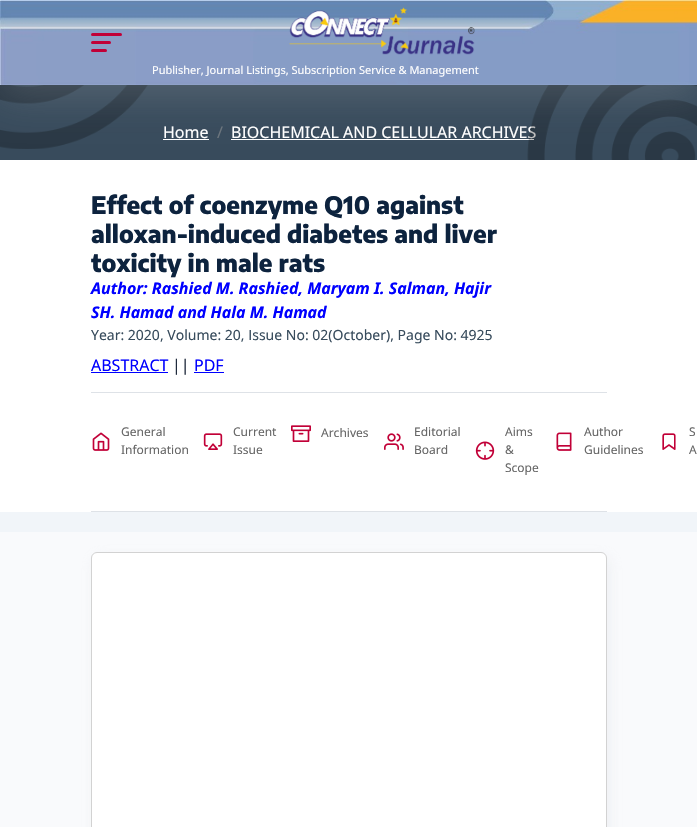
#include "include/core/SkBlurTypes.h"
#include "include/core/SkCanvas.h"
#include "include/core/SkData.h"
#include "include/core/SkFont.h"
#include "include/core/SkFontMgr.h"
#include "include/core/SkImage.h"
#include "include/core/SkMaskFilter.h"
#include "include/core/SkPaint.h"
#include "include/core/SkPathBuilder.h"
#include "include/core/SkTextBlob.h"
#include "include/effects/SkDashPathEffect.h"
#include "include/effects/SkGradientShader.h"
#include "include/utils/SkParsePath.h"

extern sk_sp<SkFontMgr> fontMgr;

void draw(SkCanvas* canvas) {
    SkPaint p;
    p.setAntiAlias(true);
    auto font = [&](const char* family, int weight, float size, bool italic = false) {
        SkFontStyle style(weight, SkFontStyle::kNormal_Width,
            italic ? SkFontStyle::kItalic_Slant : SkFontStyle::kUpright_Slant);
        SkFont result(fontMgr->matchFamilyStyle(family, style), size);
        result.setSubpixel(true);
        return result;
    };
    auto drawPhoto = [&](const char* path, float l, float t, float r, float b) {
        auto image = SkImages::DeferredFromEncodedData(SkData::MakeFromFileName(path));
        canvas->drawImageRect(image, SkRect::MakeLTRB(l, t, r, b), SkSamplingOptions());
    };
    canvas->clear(0xFFF1F5F9);
    p.setColor(0xFF384B5C);
    canvas->drawRect(SkRect::MakeLTRB(0, 85, 697, 160), p);
    drawPhoto("media/3.png", 0, 85, 148, 149);
    p.setColor(0xFFFFFFFF);
    canvas->drawRect(SkRect::MakeLTRB(163, 139, 209, 140), p);
    canvas->drawRect(SkRect::MakeLTRB(231, 139, 534, 140), p);
    auto font1 = font("Noto Sans", 400, 16);
    canvas->drawString("BIOCHEMICAL AND CELLULAR ARCHIVES", 231, 138, font1, p);
    drawPhoto("media/4.png", 527, 85, 697, 160);
    p.setColor(0x33CACACA);
    p.setMaskFilter(SkMaskFilter::MakeBlur(kNormal_SkBlurStyle, 20));
    canvas->drawRect(SkRect::MakeLTRB(0, 10, 697, 95), p);
    p.setMaskFilter(nullptr);
    drawPhoto("media/1.png", 0, 0, 697, 85);
    p.setColor(0xFFC10037);
    canvas->drawRoundRect(SkRect::MakeLTRB(91, 33, 122, 36), 1.5f, 1.5f, p);
    canvas->drawRoundRect(SkRect::MakeLTRB(91, 41, 111, 44), 1.5f, 1.5f, p);
    canvas->drawRoundRect(SkRect::MakeLTRB(91, 49, 107, 52), 1.5f, 1.5f, p);
    drawPhoto("media/2.png", 289, 7, 475, 55);
    auto font2 = font("Noto Sans", 400, 11);
    p.setColor(0xFFFFFFFF);
    canvas->drawString("Publisher, Journal Listings, Subscription Service & Management", 152, 74, font2, p);
    canvas->drawString("Home", 163, 138, font1, p);
    p.setColor(0xFF6C757D);
    canvas->drawString("/", 217, 138, font1, p);
    p.setColor(0xFFFFFFFF);
    canvas->drawRect(SkRect::MakeLTRB(0, 160, 697, 512), p);
    p.setColor(0xFFDEE2E7);
    canvas->drawRect(SkRect::MakeLTRB(91, 392, 607, 393), p);
    auto font3 = font("Encode Sans Condensed", 800, 24);
    p.setColor(0xFF0D233E);
    {
        const struct { const char* s; float x, y; } items[] = {
            {"Effect of coenzyme Q10 against", 91, 214},
            {"alloxan-induced diabetes and liver", 91, 243},
            {"toxicity in male rats", 91, 272},
        };
        for (auto [s, x, y] : items) {
            canvas->drawString(s, x, y, font3, p);
        }
    }
    auto font4 = font("Noto Sans", 700, 16, true);
    p.setColor(0xFF0000FF);
    canvas->drawString("Author: Rashied M. Rashied, Maryam I. Salman, Hajir", 91, 294, font4, p);
    canvas->drawString("SH. Hamad and Hala M. Hamad", 91, 318, font4, p);
    auto font5 = font("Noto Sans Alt", 400, 14);
    p.setColor(0xFF374B5C);
    canvas->drawString("Year: 2020, Volume: 20, Issue No: 02(October), Page No: 4925", 91, 340, font5, p);
    p.setColor(0xFF0000FF);
    canvas->drawString("ABSTRACT", 91, 371, font1, p);
    canvas->drawRect(SkRect::MakeLTRB(91, 372, 168, 373), p);
    p.setColor(0xFF1E293B);
    canvas->drawString("||", 172, 371, font1, p);
    p.setColor(0xFF0000FF);
    canvas->drawString("PDF", 194, 371, font1, p);
    canvas->drawRect(SkRect::MakeLTRB(194, 372, 224, 373), p);
    p.setColor(0xFFDEE2E7);
    canvas->drawRect(SkRect::MakeLTRB(91, 511, 607, 512), p);
    drawPhoto("media/5.png", 92, 432, 110, 451);
    auto font6 = font("Noto Sans", 400, 12);
    p.setColor(0xFF666666);
    {
        const struct { const char* s; float x, y; } items[] = {
            {"General", 121, 436},
            {"Information", 121, 454},
            {"Current", 233, 436},
        };
        for (auto [s, x, y] : items) {
            canvas->drawString(s, x, y, font6, p);
        }
    }
    drawPhoto("media/6.png", 203, 433, 223, 450);
    canvas->drawString("Issue", 233, 454, font6, p);
    drawPhoto("media/7.png", 291, 425, 311, 442);
    canvas->drawString("Archives", 321, 437, font6, p);
    canvas->drawString("Editorial", 414, 436, font6, p);
    drawPhoto("media/8.png", 384, 433, 404, 450);
    canvas->drawString("Board", 414, 454, font6, p);
    canvas->drawString("Aims", 505, 436, font6, p);
    drawPhoto("media/9.png", 475, 441, 495, 460);
    canvas->drawString("&", 505, 454, font6, p);
    canvas->drawString("Scope", 505, 472, font6, p);
    drawPhoto("media/10.png", 556, 432, 572, 451);
    {
        const struct { const char* s; float x, y; } items[] = {
            {"Author", 584, 436},
            {"Guidelines", 584, 454},
            {"S", 689, 436},
        };
        for (auto [s, x, y] : items) {
            canvas->drawString(s, x, y, font6, p);
        }
    }
    drawPhoto("media/11.png", 662, 433, 676, 450);
    canvas->drawString("A", 689, 454, font6, p);
    p.setColor(0xFFF9FAFC);
    canvas->drawRect(SkRect::MakeLTRB(0, 532, 697, 827), p);
    p.setColor(0x70DEE2E7);
    p.setMaskFilter(SkMaskFilter::MakeBlur(kNormal_SkBlurStyle, 6.5f));
    canvas->drawRoundRect(SkRect::MakeLTRB(94, 557, 610, 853), 6, 6, p);
    p.setMaskFilter(nullptr);
    p.setColor(0xFFFFFFFF);
    canvas->drawRoundRect(SkRect::MakeLTRB(91.5f, 552.5f, 606.5f, 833.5f), 5.5f, 5.5f, p);
    p.setStyle(SkPaint::kStroke_Style);
    p.setStrokeWidth(1);
    p.setColor(0xFFD2D2D2);
    canvas->drawRoundRect(SkRect::MakeLTRB(91.5f, 552.5f, 606.5f, 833.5f), 5.5f, 5.5f, p);
}
